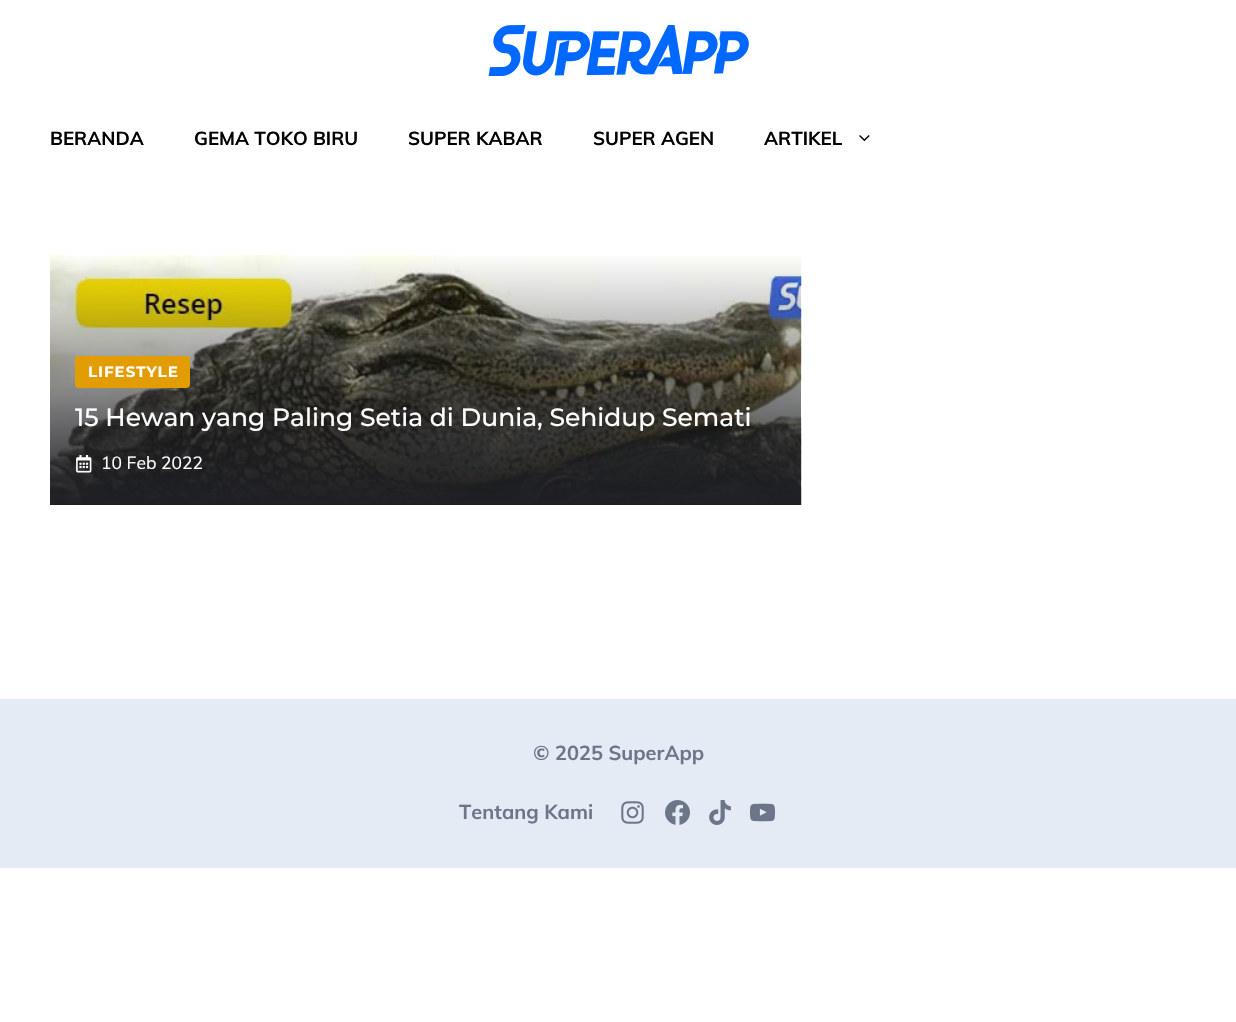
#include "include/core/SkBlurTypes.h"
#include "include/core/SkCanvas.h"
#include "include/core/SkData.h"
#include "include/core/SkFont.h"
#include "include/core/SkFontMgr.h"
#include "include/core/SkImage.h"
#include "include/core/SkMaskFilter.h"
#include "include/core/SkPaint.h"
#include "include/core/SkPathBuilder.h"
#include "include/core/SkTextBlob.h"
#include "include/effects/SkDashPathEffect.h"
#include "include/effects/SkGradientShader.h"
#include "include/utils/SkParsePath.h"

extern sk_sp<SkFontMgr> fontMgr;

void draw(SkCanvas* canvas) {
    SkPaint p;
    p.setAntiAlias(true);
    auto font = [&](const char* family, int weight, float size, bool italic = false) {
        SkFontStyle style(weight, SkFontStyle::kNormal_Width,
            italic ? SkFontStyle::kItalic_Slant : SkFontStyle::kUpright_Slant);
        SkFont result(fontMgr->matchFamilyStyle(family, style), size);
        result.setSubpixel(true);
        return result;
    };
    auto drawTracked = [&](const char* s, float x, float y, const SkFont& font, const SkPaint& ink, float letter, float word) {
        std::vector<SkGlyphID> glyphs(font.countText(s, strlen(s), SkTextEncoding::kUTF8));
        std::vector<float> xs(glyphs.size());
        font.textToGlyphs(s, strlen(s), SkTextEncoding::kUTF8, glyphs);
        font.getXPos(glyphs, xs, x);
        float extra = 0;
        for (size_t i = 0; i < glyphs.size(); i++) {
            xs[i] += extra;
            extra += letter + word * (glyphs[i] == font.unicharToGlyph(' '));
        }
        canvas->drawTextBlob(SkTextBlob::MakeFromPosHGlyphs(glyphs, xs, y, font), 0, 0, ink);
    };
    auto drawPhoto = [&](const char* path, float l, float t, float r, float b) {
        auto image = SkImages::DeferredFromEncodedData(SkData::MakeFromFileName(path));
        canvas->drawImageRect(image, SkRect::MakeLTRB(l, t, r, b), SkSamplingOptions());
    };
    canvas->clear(0xFFFFFFFF);
    drawPhoto("media/1.png", 488, 25, 749, 76);
    auto font1 = font("Muli", 700, 18.75f);
    p.setColor(0xFF000000);
    {
        const struct { const char* s; float x, y; } items[] = {
            {"BERANDA", 50, 145},
            {"GEMA TOKO BIRU", 194, 145},
            {"SUPER KABAR", 408, 145},
            {"SUPER AGEN", 593, 145},
            {"ARTIKEL", 764, 145},
        };
        for (auto [s, x, y] : items) {
            canvas->drawString(s, x, y, font1, p);
        }
    }
    drawPhoto("media/2.png", 859, 135, 870, 142);
    drawPhoto("media/3.png", 50, 255, 802, 505);
    p.setColor(0xFFE29C04);
    canvas->drawRoundRect(SkRect::MakeLTRB(75, 356, 190, 388), 4, 4, p);
    auto font2 = font("Montserrat", 700, 15);
    p.setColor(0xFFFFFFFF);
    drawTracked("LIFESTYLE", 88, 377, font2, p, 1, 0);
    auto font3 = font("Montserrat", 500, 25);
    canvas->drawString("15 Hewan yang Paling Setia di Dunia, Sehidup Semati", 75, 426, font3, p);
    drawPhoto("media/4.png", 76, 455, 92, 473);
    auto font4 = font("Muli", 400, 17.5f);
    canvas->drawString("10 Feb 2022", 101, 469, font4, p);
    p.setColor(0xFFE4EBF5);
    canvas->drawRect(SkRect::MakeLTRB(0, 699, 1236, 868), p);
    auto font5 = font("Muli", 700, 20);
    p.setColor(0xFF6D7588);
    canvas->drawString("© 2025 SuperApp", 533, 760, font5, p);
    canvas->drawString("Tentang Kami", 459, 819, font5, p);
    drawPhoto("media/5.png", 621, 801, 644, 824);
    drawPhoto("media/6.png", 665, 800, 690, 825);
    drawPhoto("media/7.png", 709, 800, 731, 825);
    drawPhoto("media/8.png", 750, 803, 775, 822);
}
